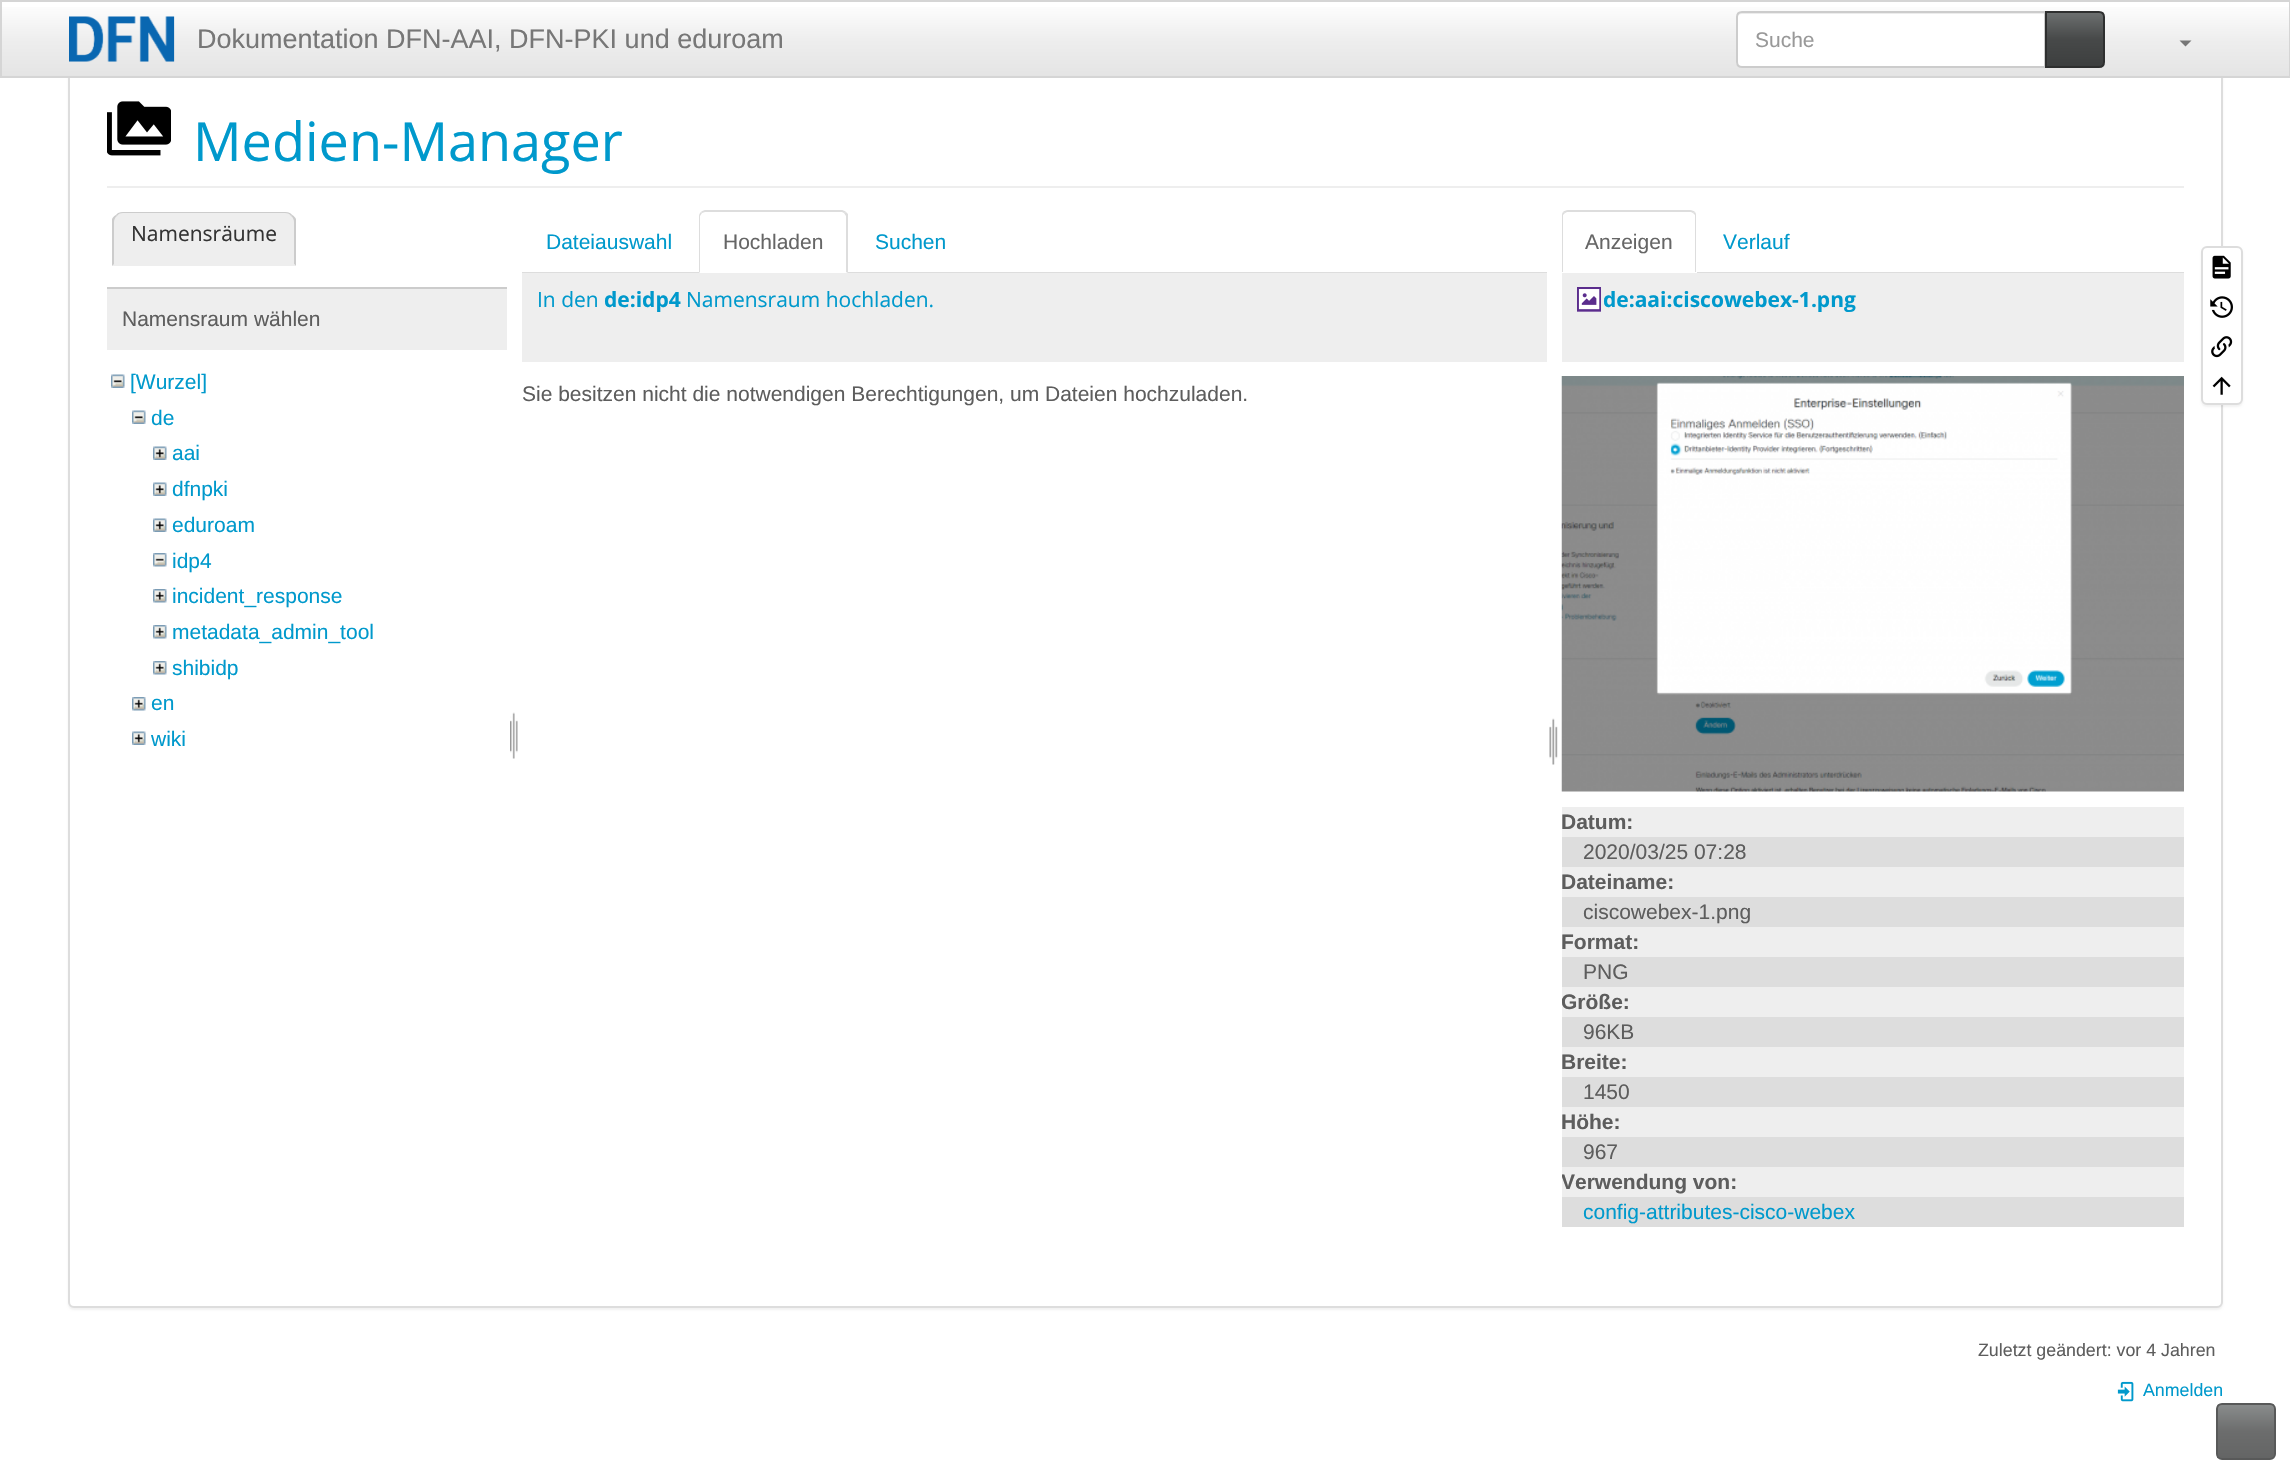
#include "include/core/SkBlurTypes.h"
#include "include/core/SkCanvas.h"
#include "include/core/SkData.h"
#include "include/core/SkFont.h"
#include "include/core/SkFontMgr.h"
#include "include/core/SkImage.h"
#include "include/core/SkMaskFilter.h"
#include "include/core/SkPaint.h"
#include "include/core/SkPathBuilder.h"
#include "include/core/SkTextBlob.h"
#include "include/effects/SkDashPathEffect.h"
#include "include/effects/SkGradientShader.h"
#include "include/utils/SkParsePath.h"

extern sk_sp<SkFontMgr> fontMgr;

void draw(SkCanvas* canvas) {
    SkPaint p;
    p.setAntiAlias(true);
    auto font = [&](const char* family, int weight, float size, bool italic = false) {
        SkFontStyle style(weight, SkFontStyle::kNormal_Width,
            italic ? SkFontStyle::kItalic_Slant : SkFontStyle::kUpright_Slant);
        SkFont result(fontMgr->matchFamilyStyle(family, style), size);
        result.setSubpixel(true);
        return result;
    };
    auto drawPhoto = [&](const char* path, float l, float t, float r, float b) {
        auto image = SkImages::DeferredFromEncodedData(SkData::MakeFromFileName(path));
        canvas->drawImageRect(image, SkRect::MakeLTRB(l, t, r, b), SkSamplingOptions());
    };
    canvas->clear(0xFFFFFFFF);
    p.setColor(0x0D000000);
    p.setMaskFilter(SkMaskFilter::MakeBlur(kNormal_SkBlurStyle, 1));
    canvas->drawRoundRect(SkRect::MakeLTRB(68, 39, 2223, 1310), 6, 6, p);
    p.setMaskFilter(nullptr);
    p.setColor(0xFFFFFFFF);
    canvas->drawRoundRect(SkRect::MakeLTRB(69, 39, 2222, 1307), 5, 5, p);
    p.setStyle(SkPaint::kStroke_Style);
    p.setStrokeWidth(2);
    p.setColor(0xFFDDDDDD);
    canvas->drawRoundRect(SkRect::MakeLTRB(69, 39, 2222, 1307), 5, 5, p);
    p.setStyle(SkPaint::kFill_Style);
    {
        const SkColor colors[] = {0xFFFFFFFF, 0xFFEEEEEE, 0xFFE4E4E4};
        const float stops[] = {0, 0.5f, 1};
        const SkPoint ends[] = {{1145, 1.5f}, {1145, 77}};
        p.setShader(SkGradientShader::MakeLinear(ends, colors, stops, 3, SkTileMode::kClamp));
        p.setAlpha(255);
    }
    canvas->drawRect(SkRect::MakeLTRB(2, 7, 2289, 76), p);
    p.setStyle(SkPaint::kStroke_Style);
    p.setShader(nullptr);
    p.setColor(0xFFD5D5D5);
    canvas->drawRect(SkRect::MakeLTRB(1, 1, 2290, 77), p);
    drawPhoto("media/1.png", 69, 16, 175, 62);
    auto font1 = font("Liberation Sans", 400, 27);
    p.setStyle(SkPaint::kFill_Style);
    p.setColor(0xFF777777);
    canvas->drawString("Dokumentation DFN-AAI, DFN-PKI und eduroam", 197, 48, font1, p);
    p.setColor(0xFFFFFFFF);
    canvas->drawPath(SkPathBuilder().moveTo(1742, 11).lineTo(2046, 11).lineTo(2046, 68).lineTo(1742, 68).cubicTo(1738.5f, 68, 1736, 65.5f, 1736, 62).lineTo(1736, 17).cubicTo(1736, 13.5f, 1738.5f, 11, 1742, 11).close().detach(), p);
    p.setColor(0xFFECECEC);
    canvas->drawPath(SkPathBuilder().moveTo(1742, 14).lineTo(2044, 14).lineTo(2044, 66).lineTo(2045, 66).lineTo(2045, 12).lineTo(1742, 12).cubicTo(1739, 12, 1737, 15, 1737, 18).cubicTo(1737, 16, 1739, 14, 1742, 14).close().detach(), p);
    p.setStyle(SkPaint::kStroke_Style);
    p.setColor(0xFFCCCCCC);
    canvas->drawPath(SkPathBuilder().moveTo(1742, 12).lineTo(2045, 12).lineTo(2045, 67).lineTo(1742, 67).cubicTo(1739, 67, 1737, 65, 1737, 62).lineTo(1737, 17).cubicTo(1737, 14, 1739, 12, 1742, 12).close().detach(), p);
    auto font2 = font("Liberation Sans", 400, 21);
    p.setStyle(SkPaint::kFill_Style);
    p.setColor(0xFF999999);
    canvas->drawString("Suche", 1755, 47, font2, p);
    {
        const SkColor colors[] = {0xFF6D7070, 0xFF474949, 0xFF3D3F3F};
        const float stops[] = {0, 0.5f, 1};
        const SkPoint ends[] = {{2075, 12}, {2075, 66}};
        p.setShader(SkGradientShader::MakeLinear(ends, colors, stops, 3, SkTileMode::kClamp));
        p.setAlpha(255);
    }
    canvas->drawRect(SkRect::MakeLTRB(2047, 12, 2103, 66), p);
    p.setStyle(SkPaint::kStroke_Style);
    p.setShader(nullptr);
    p.setColor(0xFF2E2F2F);
    canvas->drawPath(SkPathBuilder().moveTo(2046, 12).lineTo(2099, 12).cubicTo(2102, 12, 2104, 14, 2104, 17).lineTo(2104, 62).cubicTo(2104, 65, 2102, 67, 2099, 67).lineTo(2046, 67).close().detach(), p);
    p.setStyle(SkPaint::kFill_Style);
    p.setColor(0xFF777777);
    canvas->drawPath(SkPathBuilder().moveTo(2179.5f, 40.5f).lineTo(2191.5f, 40.5f).lineTo(2185.5f, 46.5f).close().detach(), p);
    p.setColor(0xFFEEEEEE);
    canvas->drawRect(SkRect::MakeLTRB(107, 186, 2184, 188), p);
    drawPhoto("media/2.png", 107, 101, 171, 156);
    auto font3 = font("Open Sans", 400, 54);
    p.setColor(0xFF0099CC);
    canvas->drawString("Medien-Manager", 193, 161, font3, p);
    p.setColor(0xFFEEEEEE);
    canvas->drawPath(SkPathBuilder().moveTo(124, 212).lineTo(285, 212).cubicTo(291, 212, 296, 217, 296, 223).lineTo(296, 266).lineTo(113, 266).lineTo(113, 223).cubicTo(113, 217, 118, 212, 124, 212).close().detach(), p);
    p.setColor(0xFFCCCCCC);
    canvas->drawPath(SkPathBuilder().moveTo(123, 212).cubicTo(120, 212, 117, 213, 116, 215).lineTo(117, 216).cubicTo(118, 214, 120, 213, 123, 213).lineTo(285, 213).cubicTo(288, 213, 290, 214, 291, 216).lineTo(292, 215).cubicTo(291, 213, 288, 212, 285, 212).close().detach(), p);
    canvas->drawPath(SkPathBuilder().moveTo(292, 215).cubicTo(294, 216, 295, 217, 296, 219).lineTo(296, 266).lineTo(294, 264).lineTo(294, 222).cubicTo(294, 220, 293, 217, 291, 216).close().detach(), p);
    p.setColor(0xFFEEEEEE);
    canvas->drawPath(SkPathBuilder().moveTo(296, 266).lineTo(294, 264).lineTo(114, 264).lineTo(112, 266).close().detach(), p);
    p.setColor(0xFFCCCCCC);
    canvas->drawPath(SkPathBuilder().moveTo(112, 266).lineTo(114, 264).lineTo(114, 222).cubicTo(114, 220, 115, 217, 117, 216).lineTo(116, 215).cubicTo(114, 216, 113, 217, 112, 219).close().detach(), p);
    auto font4 = font("Open Sans", 400, 21);
    p.setColor(0xFF333333);
    canvas->drawString("Namensräume", 131, 241, font4, p);
    p.setColor(0xFFEEEEEE);
    canvas->drawRect(SkRect::MakeLTRB(107, 289, 507, 350), p);
    p.setColor(0xFFCCCCCC);
    canvas->drawRect(SkRect::MakeLTRB(107, 287, 507, 289), p);
    p.setColor(0xFF5D5D5D);
    canvas->drawString("Namensraum wählen", 122, 326, font2, p);
    drawPhoto("media/3.png", 111, 374, 125, 388);
    p.setColor(0xFF0099CC);
    canvas->drawString("[Wurzel]", 130, 389, font2, p);
    drawPhoto("media/3.png", 132, 410, 146, 424);
    canvas->drawString("de", 151, 425, font2, p);
    drawPhoto("media/4.png", 153, 446, 167, 460);
    canvas->drawString("aai", 172, 460, font2, p);
    drawPhoto("media/4.png", 153, 482, 167, 496);
    canvas->drawString("dfnpki", 172, 496, font2, p);
    drawPhoto("media/4.png", 153, 518, 167, 532);
    canvas->drawString("eduroam", 172, 532, font2, p);
    drawPhoto("media/5.png", 153, 553, 167, 567);
    canvas->drawString("idp4", 172, 568, font2, p);
    drawPhoto("media/6.png", 153, 589, 167, 603);
    canvas->drawString("incident_response", 172, 603, font2, p);
    drawPhoto("media/6.png", 153, 625, 167, 639);
    canvas->drawString("metadata_admin_tool", 172, 639, font2, p);
    drawPhoto("media/6.png", 153, 661, 167, 675);
    canvas->drawString("shibidp", 172, 675, font2, p);
    drawPhoto("media/6.png", 132, 697, 146, 711);
    canvas->drawString("en", 151, 710, font2, p);
    drawPhoto("media/4.png", 132, 731, 146, 745);
    canvas->drawString("wiki", 151, 746, font2, p);
    drawPhoto("media/7.png", 510, 712, 518, 759);
    p.setColor(0xFFDDDDDD);
    canvas->drawRect(SkRect::MakeLTRB(522, 272, 1547, 273), p);
    p.setColor(0xFF0099CC);
    canvas->drawString("Dateiauswahl", 546, 249, font2, p);
    p.setColor(0xFFFFFFFF);
    canvas->drawPath(SkPathBuilder().moveTo(705, 210).lineTo(842, 210).cubicTo(845.5f, 210, 848, 212.5f, 848, 216).lineTo(848, 273).lineTo(699, 273).lineTo(699, 216).cubicTo(699, 212.5f, 701.5f, 210, 705, 210).close().detach(), p);
    p.setColor(0xFFDDDDDD);
    canvas->drawPath(SkPathBuilder().moveTo(705, 210).cubicTo(704, 210, 702, 211, 701, 212).lineTo(702, 213).lineTo(705, 212).lineTo(842, 212).lineTo(844, 213).lineTo(846, 212).cubicTo(845, 211, 843, 210, 842, 210).close().detach(), p);
    canvas->drawPath(SkPathBuilder().moveTo(848, 214).lineTo(848, 273).lineTo(846, 272).lineTo(846, 216).lineTo(844, 213).lineTo(846, 212).close().detach(), p);
    canvas->drawPath(SkPathBuilder().moveTo(699, 273).lineTo(700, 272).lineTo(700, 216).lineTo(702, 213).lineTo(701, 212).cubicTo(700, 213, 699, 214, 699, 216).close().detach(), p);
    p.setColor(0xFF666666);
    canvas->drawString("Hochladen", 723, 249, font2, p);
    p.setColor(0xFF0099CC);
    canvas->drawString("Suchen", 875, 249, font2, p);
    p.setColor(0xFFEEEEEE);
    canvas->drawRect(SkRect::MakeLTRB(522, 273, 1547, 362), p);
    p.setColor(0xFF0099CC);
    canvas->drawString("In den", 537, 307, font4, p);
    auto font5 = font("Open Sans", 700, 21);
    canvas->drawString("de:idp4", 604, 307, font5, p);
    canvas->drawString("Namensraum hochladen.", 686, 307, font4, p);
    p.setColor(0xFF5D5D5D);
    canvas->drawString("Sie besitzen nicht die notwendigen Berechtigungen, um Dateien hochzuladen.", 522, 401, font2, p);
    drawPhoto("media/8.png", 1549, 718, 1558, 765);
    p.setColor(0xFFDDDDDD);
    canvas->drawRect(SkRect::MakeLTRB(1697, 272, 2184, 273), p);
    canvas->drawPath(SkPathBuilder().moveTo(1568, 210).cubicTo(1566, 210, 1564, 211, 1563, 212).lineTo(1565, 213).lineTo(1567, 212).lineTo(1691, 212).lineTo(1693, 213).lineTo(1695, 212).cubicTo(1694, 211, 1692, 210, 1690, 210).close().detach(), p);
    canvas->drawPath(SkPathBuilder().moveTo(1695, 212).cubicTo(1696, 213, 1696, 215, 1696, 216).lineTo(1696, 272).lineTo(1695, 272).lineTo(1695, 215).lineTo(1693, 213).close().detach(), p);
    canvas->drawPath(SkPathBuilder().moveTo(1563, 212).cubicTo(1562, 213, 1562, 215, 1562, 216).lineTo(1562, 272).lineTo(1563, 272).lineTo(1563, 215).lineTo(1565, 213).close().detach(), p);
    p.setColor(0xFF666666);
    canvas->drawString("Anzeigen", 1585, 249, font2, p);
    p.setColor(0xFF0099CC);
    canvas->drawString("Verlauf", 1723, 249, font2, p);
    p.setColor(0xFFEEEEEE);
    canvas->drawRect(SkRect::MakeLTRB(1562, 273, 2184, 362), p);
    drawPhoto("media/9.png", 1577, 287, 1601, 312);
    p.setColor(0xFF0099CC);
    canvas->drawString("de:aai:ciscowebex-1.png", 1603, 307, font5, p);
    drawPhoto("media/10.png", 1561, 376, 2184, 792);
    p.setColor(0xFFEEEEEE);
    canvas->drawRect(SkRect::MakeLTRB(1562, 807, 2184, 837), p);
    auto font6 = font("Liberation Sans", 700, 21);
    p.setColor(0xFF5D5D5D);
    canvas->drawString("Datum:", 1561, 829, font6, p);
    p.setColor(0xFFDDDDDD);
    canvas->drawRect(SkRect::MakeLTRB(1562, 837, 2184, 867), p);
    p.setColor(0xFF5D5D5D);
    canvas->drawString("2020/03/25 07:28", 1583, 859, font2, p);
    p.setColor(0xFFEEEEEE);
    canvas->drawRect(SkRect::MakeLTRB(1562, 867, 2184, 897), p);
    p.setColor(0xFF5D5D5D);
    canvas->drawString("Dateiname:", 1561, 889, font6, p);
    p.setColor(0xFFDDDDDD);
    canvas->drawRect(SkRect::MakeLTRB(1562, 897, 2184, 927), p);
    p.setColor(0xFF5D5D5D);
    canvas->drawString("ciscowebex-1.png", 1583, 919, font2, p);
    p.setColor(0xFFEEEEEE);
    canvas->drawRect(SkRect::MakeLTRB(1562, 927, 2184, 957), p);
    p.setColor(0xFF5D5D5D);
    canvas->drawString("Format:", 1561, 949, font6, p);
    p.setColor(0xFFDDDDDD);
    canvas->drawRect(SkRect::MakeLTRB(1562, 957, 2184, 987), p);
    p.setColor(0xFF5D5D5D);
    canvas->drawString("PNG", 1583, 979, font2, p);
    p.setColor(0xFFEEEEEE);
    canvas->drawRect(SkRect::MakeLTRB(1562, 987, 2184, 1017), p);
    canvas->save();
    canvas->clipRect(SkRect::MakeLTRB(1562, 377, 2184, 1262));
    p.setColor(0xFF5D5D5D);
    canvas->drawString("Größe:", 1561, 1009, font6, p);
    canvas->restore();
    p.setColor(0xFFDDDDDD);
    canvas->drawRect(SkRect::MakeLTRB(1562, 1017, 2184, 1047), p);
    p.setColor(0xFF5D5D5D);
    canvas->drawString("96KB", 1583, 1039, font2, p);
    p.setColor(0xFFEEEEEE);
    canvas->drawRect(SkRect::MakeLTRB(1562, 1047, 2184, 1077), p);
    p.setColor(0xFF5D5D5D);
    canvas->drawString("Breite:", 1561, 1069, font6, p);
    p.setColor(0xFFDDDDDD);
    canvas->drawRect(SkRect::MakeLTRB(1562, 1077, 2184, 1107), p);
    p.setColor(0xFF5D5D5D);
    canvas->drawString("1450", 1583, 1099, font2, p);
    p.setColor(0xFFEEEEEE);
    canvas->drawRect(SkRect::MakeLTRB(1562, 1107, 2184, 1137), p);
    p.setColor(0xFF5D5D5D);
    canvas->drawString("Höhe:", 1561, 1129, font6, p);
    p.setColor(0xFFDDDDDD);
    canvas->drawRect(SkRect::MakeLTRB(1562, 1137, 2184, 1167), p);
    p.setColor(0xFF5D5D5D);
    canvas->drawString("967", 1583, 1159, font2, p);
    p.setColor(0xFFEEEEEE);
    canvas->drawRect(SkRect::MakeLTRB(1562, 1167, 2184, 1197), p);
    canvas->save();
    canvas->clipRect(SkRect::MakeLTRB(1562, 377, 2184, 1262));
    p.setColor(0xFF5D5D5D);
    canvas->drawString("Verwendung von:", 1561, 1189, font6, p);
    canvas->restore();
    p.setColor(0xFFDDDDDD);
    canvas->drawRect(SkRect::MakeLTRB(1562, 1197, 2184, 1227), p);
    p.setColor(0xFF0099CC);
    canvas->drawString("config-attributes-cisco-webex", 1583, 1219, font2, p);
    p.setColor(0x0D000000);
    p.setMaskFilter(SkMaskFilter::MakeBlur(kNormal_SkBlurStyle, 1));
    canvas->drawRoundRect(SkRect::MakeLTRB(2201, 248, 2243, 407), 6, 6, p);
    p.setMaskFilter(nullptr);
    p.setColor(0xFFFFFFFF);
    canvas->drawRoundRect(SkRect::MakeLTRB(2202, 247, 2242, 404), 5, 5, p);
    p.setStyle(SkPaint::kStroke_Style);
    p.setColor(0xFFDDDDDD);
    canvas->drawRoundRect(SkRect::MakeLTRB(2202, 247, 2242, 404), 5, 5, p);
    drawPhoto("media/11.png", 2212, 255, 2231, 279);
    drawPhoto("media/12.png", 2210, 296, 2233, 318);
    drawPhoto("media/13.png", 2211, 336, 2233, 358);
    drawPhoto("media/14.png", 2212, 376, 2231, 395);
    auto font7 = font("Liberation Sans", 400, 17.8f);
    p.setStyle(SkPaint::kFill_Style);
    p.setColor(0xFF5D5D5D);
    canvas->drawString("Zuletzt geändert: vor 4 Jahren", 1978, 1356, font7, p);
    drawPhoto("media/15.png", 2117, 1381, 2134, 1402);
    p.setColor(0xFF0099CC);
    canvas->drawString("Anmelden", 2143, 1396, font7, p);
    canvas->save();
    canvas->clipPath(SkPathBuilder().moveTo(2222, 1403).lineTo(2270, 1403).cubicTo(2273.5f, 1403, 2276, 1405.5f, 2276, 1409).lineTo(2276, 1454).cubicTo(2276, 1457.5f, 2273.5f, 1460, 2270, 1460).lineTo(2222, 1460).cubicTo(2218.5f, 1460, 2216, 1457.5f, 2216, 1454).lineTo(2216, 1409).cubicTo(2216, 1405.5f, 2218.5f, 1403, 2222, 1403).close().detach(), true);
    {
        const SkColor colors[] = {0xFF8A8D8D, 0xFF6C6D6D, 0xFF646565};
        const float stops[] = {0, 0.5f, 1};
        const SkPoint ends[] = {{2246, 1404}, {2246, 1458}};
        p.setShader(SkGradientShader::MakeLinear(ends, colors, stops, 3, SkTileMode::kClamp));
        p.setAlpha(255);
    }
    canvas->drawRect(SkRect::MakeLTRB(2217, 1404, 2274, 1458), p);
    canvas->restore();
    p.setStyle(SkPaint::kStroke_Style);
    p.setShader(nullptr);
    p.setColor(0xFF585959);
    canvas->drawRoundRect(SkRect::MakeLTRB(2217, 1404, 2275, 1459), 5, 5, p);
}
